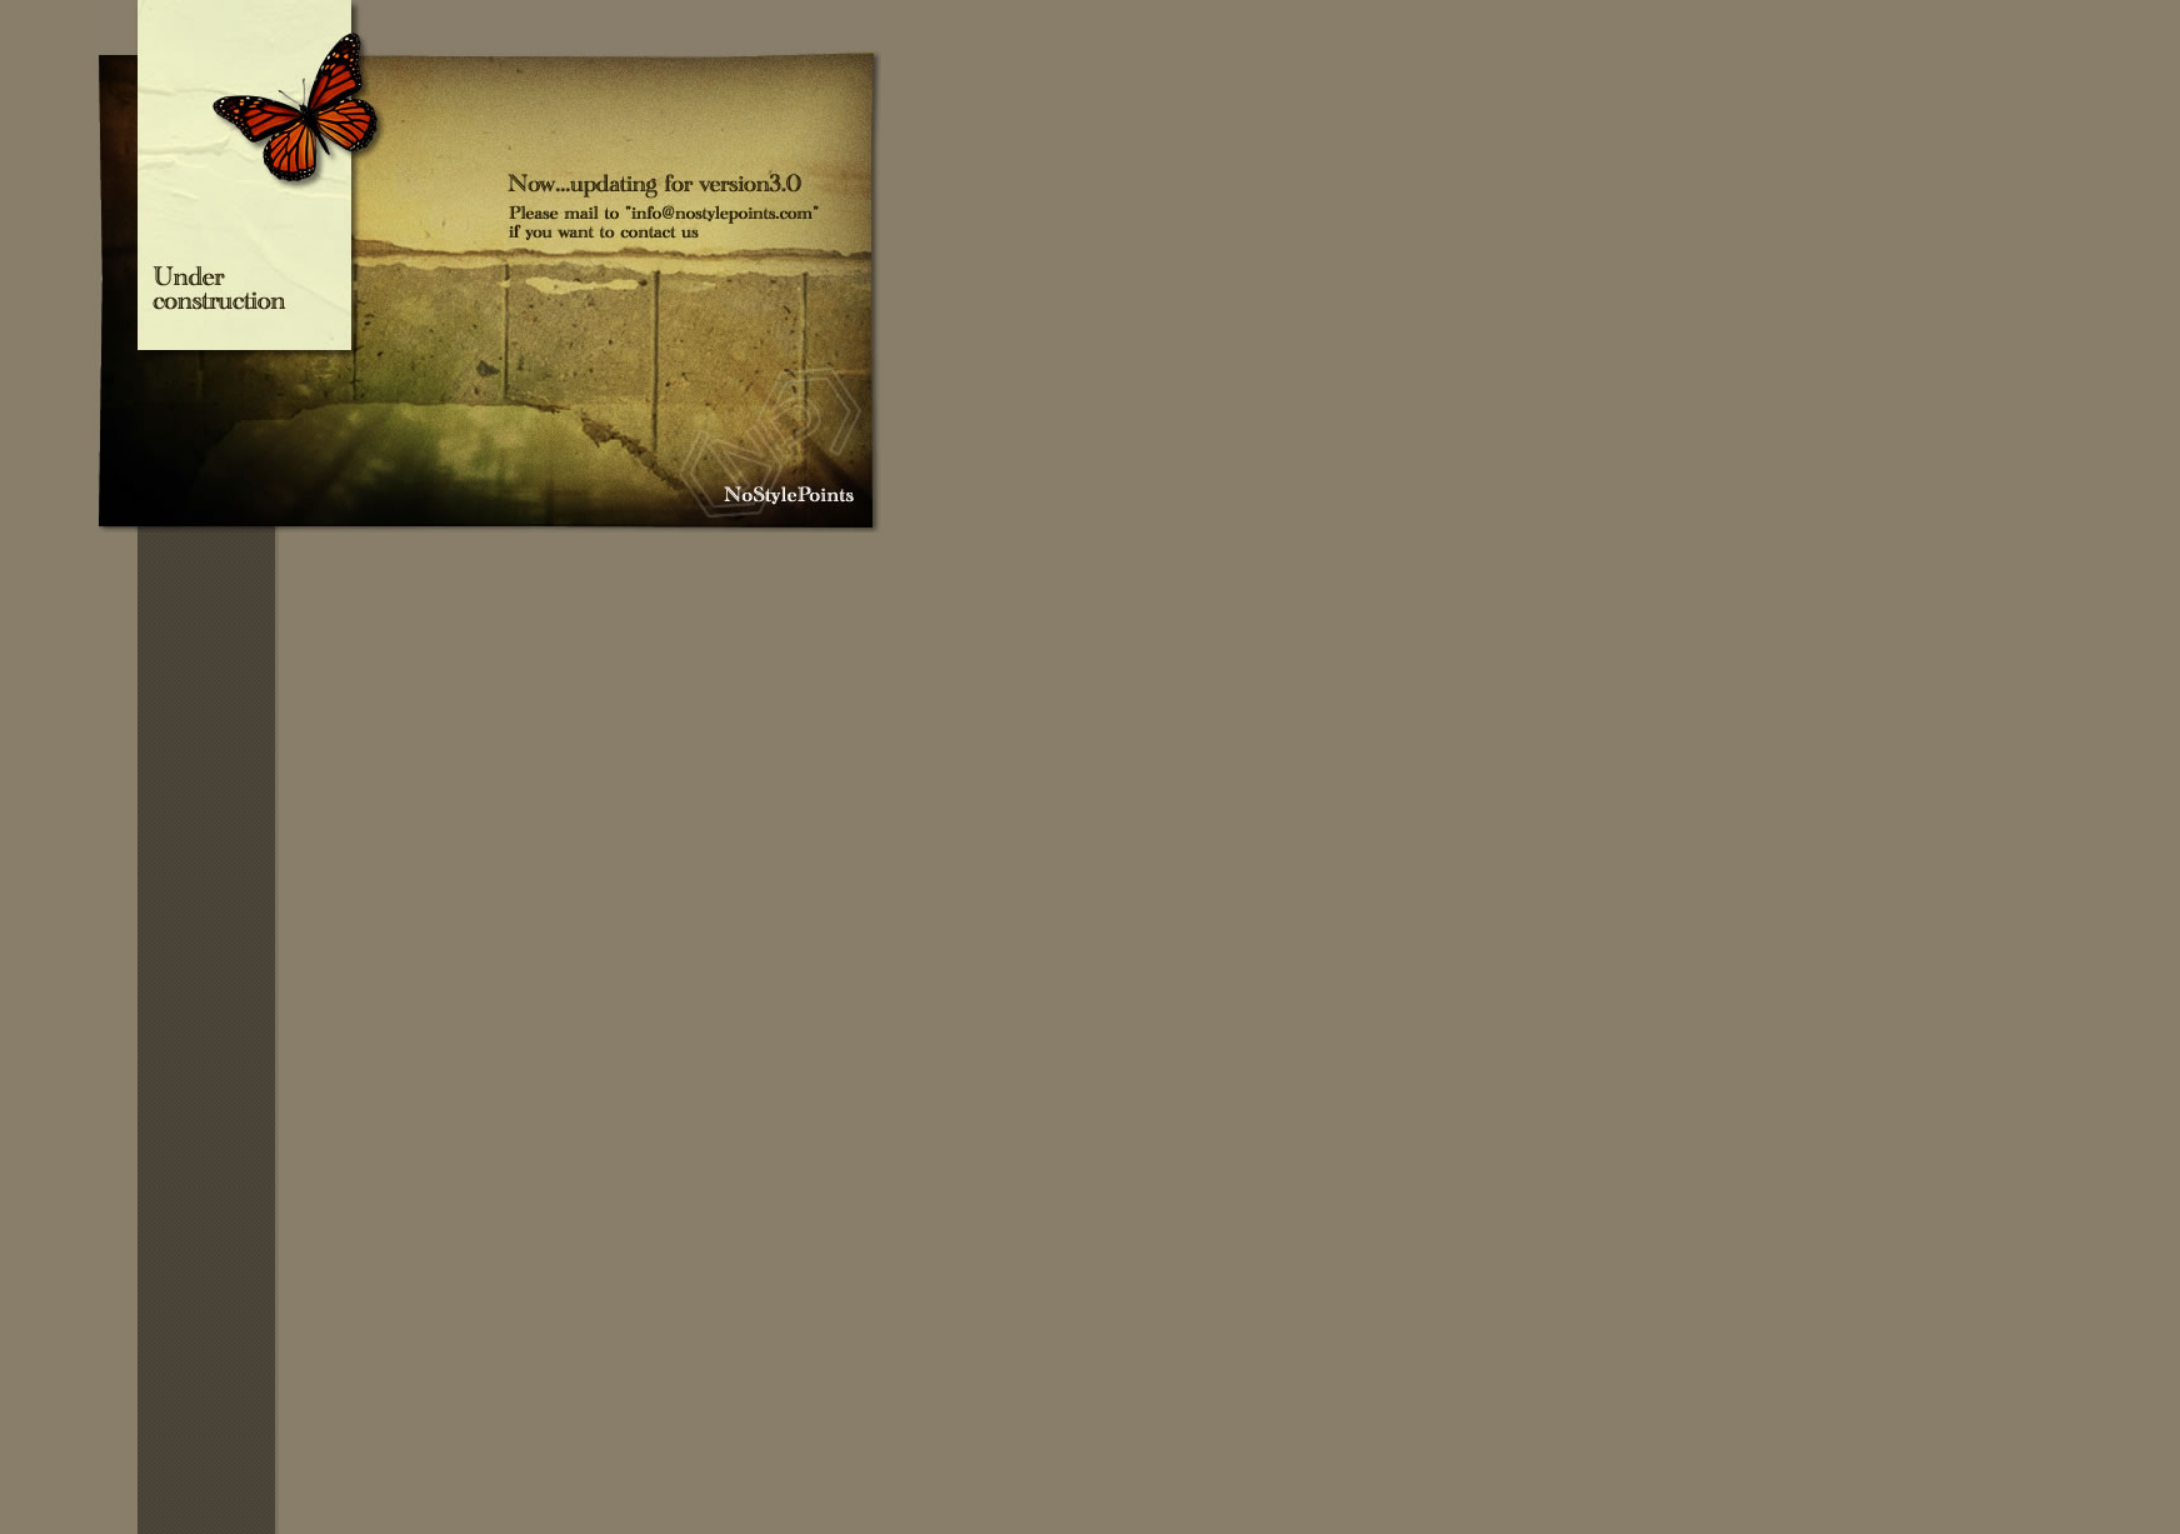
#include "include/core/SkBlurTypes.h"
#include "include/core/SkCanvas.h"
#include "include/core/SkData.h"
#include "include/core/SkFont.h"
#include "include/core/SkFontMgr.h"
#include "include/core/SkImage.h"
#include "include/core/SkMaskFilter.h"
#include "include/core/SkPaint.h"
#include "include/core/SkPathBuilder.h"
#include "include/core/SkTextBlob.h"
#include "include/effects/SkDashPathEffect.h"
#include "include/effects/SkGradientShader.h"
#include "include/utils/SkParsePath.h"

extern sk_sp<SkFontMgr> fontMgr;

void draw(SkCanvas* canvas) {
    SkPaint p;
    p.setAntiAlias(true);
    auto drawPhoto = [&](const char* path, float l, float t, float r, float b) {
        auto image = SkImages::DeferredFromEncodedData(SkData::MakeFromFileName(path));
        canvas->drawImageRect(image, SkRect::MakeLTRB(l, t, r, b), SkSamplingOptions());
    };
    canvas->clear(0xFF897E69);
    drawPhoto("media/1.png", 137, 532, 279, 1534);
    drawPhoto("media/2.png", 94, 0, 881, 533);
}
